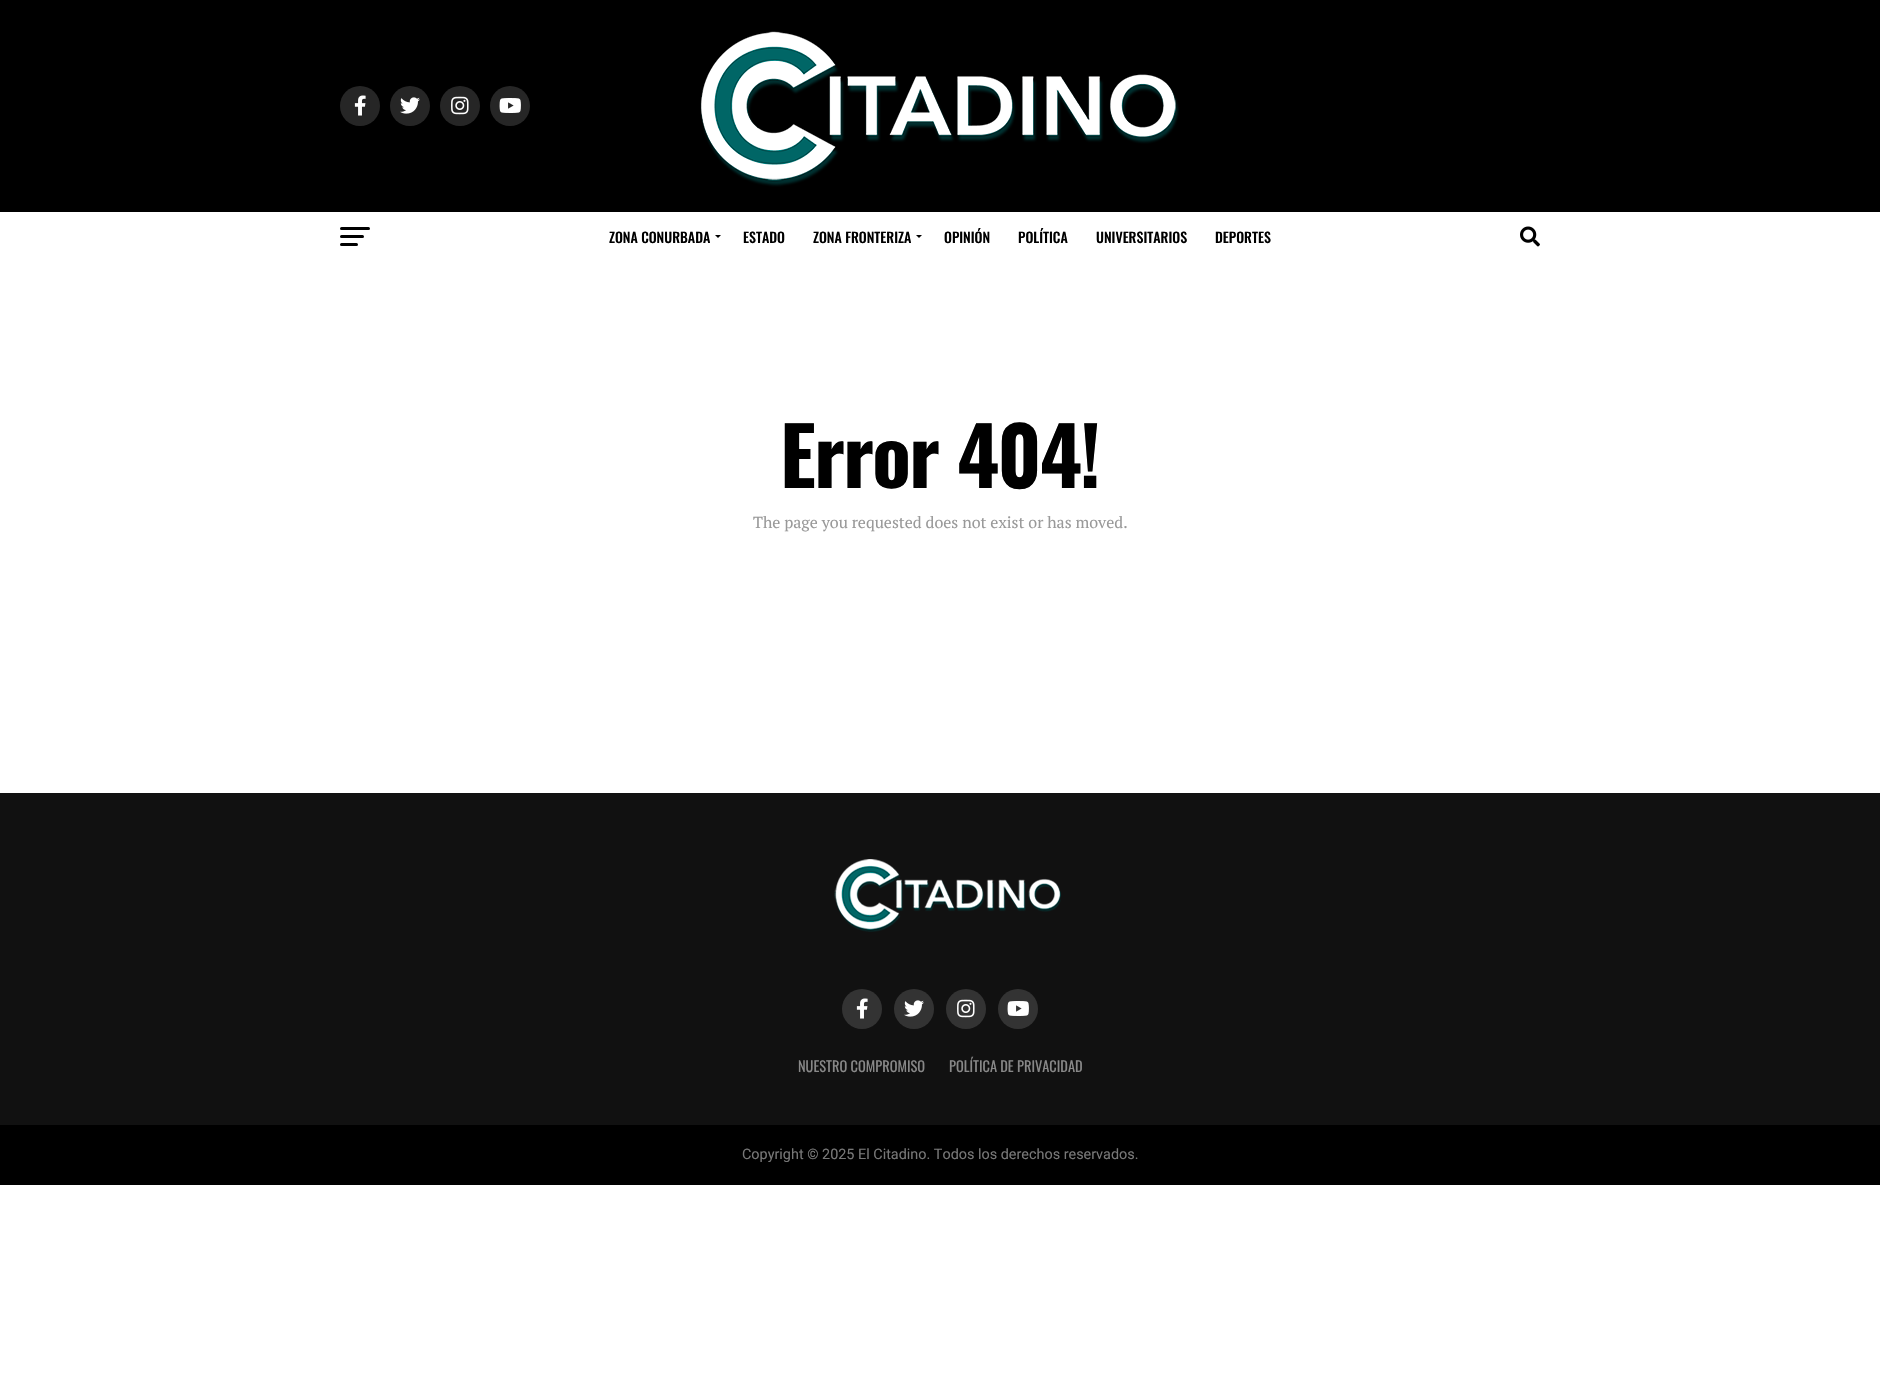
#include "include/core/SkBlurTypes.h"
#include "include/core/SkCanvas.h"
#include "include/core/SkData.h"
#include "include/core/SkFont.h"
#include "include/core/SkFontMgr.h"
#include "include/core/SkImage.h"
#include "include/core/SkMaskFilter.h"
#include "include/core/SkPaint.h"
#include "include/core/SkPathBuilder.h"
#include "include/core/SkTextBlob.h"
#include "include/effects/SkDashPathEffect.h"
#include "include/effects/SkGradientShader.h"
#include "include/utils/SkParsePath.h"

extern sk_sp<SkFontMgr> fontMgr;

void draw(SkCanvas* canvas) {
    SkPaint p;
    p.setAntiAlias(true);
    auto font = [&](const char* family, int weight, float size, bool italic = false) {
        SkFontStyle style(weight, SkFontStyle::kNormal_Width,
            italic ? SkFontStyle::kItalic_Slant : SkFontStyle::kUpright_Slant);
        SkFont result(fontMgr->matchFamilyStyle(family, style), size);
        result.setSubpixel(true);
        return result;
    };
    auto drawTracked = [&](const char* s, float x, float y, const SkFont& font, const SkPaint& ink, float letter, float word) {
        std::vector<SkGlyphID> glyphs(font.countText(s, strlen(s), SkTextEncoding::kUTF8));
        std::vector<float> xs(glyphs.size());
        font.textToGlyphs(s, strlen(s), SkTextEncoding::kUTF8, glyphs);
        font.getXPos(glyphs, xs, x);
        float extra = 0;
        for (size_t i = 0; i < glyphs.size(); i++) {
            xs[i] += extra;
            extra += letter + word * (glyphs[i] == font.unicharToGlyph(' '));
        }
        canvas->drawTextBlob(SkTextBlob::MakeFromPosHGlyphs(glyphs, xs, y, font), 0, 0, ink);
    };
    auto drawPhoto = [&](const char* path, float l, float t, float r, float b) {
        auto image = SkImages::DeferredFromEncodedData(SkData::MakeFromFileName(path));
        canvas->drawImageRect(image, SkRect::MakeLTRB(l, t, r, b), SkSamplingOptions());
    };
    canvas->clear(0xFFFFFFFF);
    p.setColor(0xFF000000);
    canvas->drawRect(SkRect::MakeLTRB(0, 0, 1880, 212), p);
    p.setColor(0xFF262626);
    canvas->drawCircle(360, 106, 20, p);
    drawPhoto("media/1.png", 354, 95, 366, 116);
    canvas->drawCircle(410, 106, 20, p);
    drawPhoto("media/2.png", 400, 97, 420, 114);
    canvas->drawCircle(460, 106, 20, p);
    drawPhoto("media/3.png", 451, 96, 469, 115);
    canvas->drawCircle(510, 106, 20, p);
    drawPhoto("media/4.png", 499, 98, 521, 113);
    drawPhoto("media/5.png", 700, 31, 1179, 187);
    p.setColor(0xFF000000);
    canvas->drawRoundRect(SkRect::MakeLTRB(340, 227, 370, 230), 1.5f, 1.5f, p);
    canvas->drawRoundRect(SkRect::MakeLTRB(340, 235, 364, 238), 1.5f, 1.5f, p);
    canvas->drawRoundRect(SkRect::MakeLTRB(340, 243, 358, 246), 1.5f, 1.5f, p);
    auto font1 = font("Oswald", 500, 14);
    canvas->drawString("ZONA CONURBADA", 609, 243, font1, p);
    canvas->drawPath(SkPathBuilder().moveTo(715, 235).lineTo(721, 235).lineTo(718, 238).close().detach(), p);
    canvas->drawString("ESTADO", 743, 243, font1, p);
    canvas->drawString("ZONA FRONTERIZA", 813, 243, font1, p);
    canvas->drawPath(SkPathBuilder().moveTo(916, 235).lineTo(922, 235).lineTo(919, 238).close().detach(), p);
    {
        const struct { const char* s; float x, y; } items[] = {
            {"OPINIÓN", 944, 243},
            {"POLÍTICA", 1018, 243},
            {"UNIVERSITARIOS", 1096, 243},
            {"DEPORTES", 1215, 243},
        };
        for (auto [s, x, y] : items) {
            canvas->drawString(s, x, y, font1, p);
        }
    }
    drawPhoto("media/6.png", 1520, 226, 1540, 247);
    auto font2 = font("Oswald", 700, 80);
    drawTracked("Error 404!", 780, 488, font2, p, -1.6f, 0);
    auto font3 = font("PT Serif", 400, 16);
    p.setColor(0xFF999999);
    canvas->drawString("The page you requested does not exist or has moved.", 753, 528, font3, p);
    p.setColor(0xFF111111);
    canvas->drawRect(SkRect::MakeLTRB(0, 793, 1880, 1125), p);
    drawPhoto("media/7.png", 834, 859, 1061, 932);
    p.setColor(0xFF333333);
    canvas->drawCircle(862, 1009, 20, p);
    drawPhoto("media/8.png", 856, 998, 868, 1019);
    canvas->drawCircle(914, 1009, 20, p);
    drawPhoto("media/9.png", 904, 1000, 924, 1017);
    canvas->drawCircle(966, 1009, 20, p);
    drawPhoto("media/10.png", 957, 999, 975, 1018);
    canvas->drawCircle(1018, 1009, 20, p);
    drawPhoto("media/11.png", 1007, 1001, 1029, 1016);
    auto font4 = font("Oswald", 400, 14.4f);
    p.setColor(0xFF888888);
    canvas->drawString("NUESTRO COMPROMISO", 798, 1072, font4, p);
    canvas->drawString("POLÍTICA DE PRIVACIDAD", 949, 1072, font4, p);
    p.setColor(0xFF000000);
    canvas->drawRect(SkRect::MakeLTRB(0, 1125, 1880, 1185), p);
    auto font5 = font("Roboto", 400, 14.4f);
    p.setColor(0xFF777777);
    canvas->drawString("Copyright © 2025 El Citadino. Todos los derechos reservados.", 742, 1159, font5, p);
}
